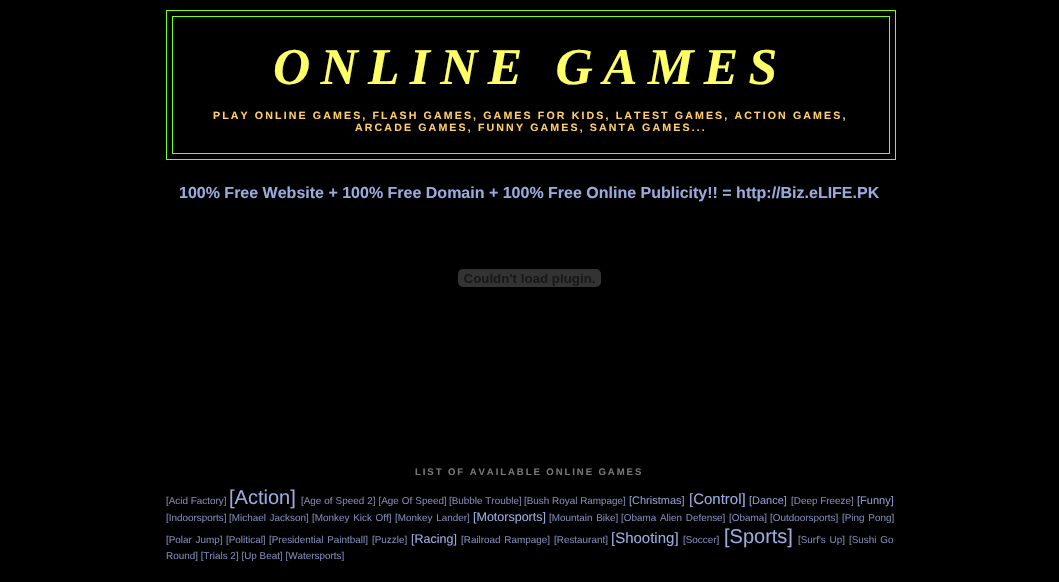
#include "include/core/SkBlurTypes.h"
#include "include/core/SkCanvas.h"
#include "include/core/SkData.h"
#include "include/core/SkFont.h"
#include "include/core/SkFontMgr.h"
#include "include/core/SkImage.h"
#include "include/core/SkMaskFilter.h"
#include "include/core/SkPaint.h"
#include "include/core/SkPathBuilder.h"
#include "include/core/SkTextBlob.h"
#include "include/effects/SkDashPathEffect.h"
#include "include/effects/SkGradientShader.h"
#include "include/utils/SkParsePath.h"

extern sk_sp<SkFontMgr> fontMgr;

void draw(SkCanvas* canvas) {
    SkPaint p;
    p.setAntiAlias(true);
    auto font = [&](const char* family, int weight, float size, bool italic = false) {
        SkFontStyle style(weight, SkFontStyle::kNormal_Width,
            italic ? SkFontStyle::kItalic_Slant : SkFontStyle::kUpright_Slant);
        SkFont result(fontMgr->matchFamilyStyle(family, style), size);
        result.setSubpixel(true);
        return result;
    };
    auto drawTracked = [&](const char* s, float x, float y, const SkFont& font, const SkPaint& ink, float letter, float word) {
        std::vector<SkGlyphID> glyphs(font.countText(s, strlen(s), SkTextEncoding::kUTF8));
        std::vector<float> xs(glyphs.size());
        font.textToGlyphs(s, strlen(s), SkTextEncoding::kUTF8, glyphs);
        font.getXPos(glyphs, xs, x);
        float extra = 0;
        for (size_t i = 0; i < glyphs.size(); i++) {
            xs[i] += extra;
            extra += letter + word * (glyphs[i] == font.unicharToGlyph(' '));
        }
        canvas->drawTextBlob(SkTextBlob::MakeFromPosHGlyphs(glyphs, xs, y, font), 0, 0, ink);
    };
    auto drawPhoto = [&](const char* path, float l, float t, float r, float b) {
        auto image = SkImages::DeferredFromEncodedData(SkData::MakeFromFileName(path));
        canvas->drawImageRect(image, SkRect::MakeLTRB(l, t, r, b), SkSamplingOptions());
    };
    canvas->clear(0xFF000000);
    p.setStyle(SkPaint::kStroke_Style);
    p.setStrokeWidth(1);
    p.setColor(0xFF80FF00);
    canvas->drawRect(SkRect::MakeLTRB(166.5f, 10.5f, 895.5f, 159.5f), p);
    canvas->drawRect(SkRect::MakeLTRB(172.5f, 16.5f, 889.5f, 153.5f), p);
    auto font1 = font("Liberation Serif", 700, 51.6f, true);
    p.setStyle(SkPaint::kFill_Style);
    p.setColor(0xFFFFFF66);
    drawTracked("ONLINE GAMES", 273, 84, font1, p, 10.25f, 0);
    auto font2 = font("Liberation Sans", 700, 10.62f);
    p.setColor(0xFFFFCC66);
    drawTracked("PLAY ONLINE GAMES, FLASH GAMES, GAMES FOR KIDS, LATEST GAMES, ACTION GAMES,", 213, 119, font2, p, 2.12f, 0);
    drawTracked("ARCADE GAMES, FUNNY GAMES, SANTA GAMES...", 355, 131, font2, p, 2.12f, 0);
    auto font3 = font("Liberation Sans", 700, 16);
    p.setColor(0xFF99AADD);
    canvas->drawString("100% Free Website + 100% Free Domain + 100% Free Online Publicity!! = http://Biz.eLIFE.PK", 179, 198, font3, p);
    drawPhoto("media/1.png", 458, 269, 601, 287);
    auto font4 = font("Liberation Sans", 700, 9.6f);
    p.setColor(0xFF777777);
    drawTracked("LIST OF AVAILABLE ONLINE GAMES", 415, 475, font4, p, 1.9f, 0);
    auto font5 = font("Liberation Sans", 400, 9.9f);
    p.setColor(0xFF7A88B1);
    canvas->drawString("[Acid Factory]", 166, 504, font5, p);
    auto font6 = font("Liberation Sans", 400, 20);
    p.setColor(0xFF99AADD);
    canvas->drawString("[Action]", 229, 504, font6, p);
    p.setColor(0xFF7A88B1);
    drawTracked("[Age of Speed 2] [Age Of Speed]", 301, 504, font5, p, 0, 0.25f);
    canvas->drawString("[Bubble Trouble]", 449, 504, font5, p);
    canvas->drawString("[Bush Royal Rampage]", 524, 504, font5, p);
    auto font7 = font("Liberation Sans", 400, 11);
    p.setColor(0xFF8A99C7);
    canvas->drawString("[Christmas]", 629, 504, font7, p);
    auto font8 = font("Liberation Sans", 400, 15);
    p.setColor(0xFF99AADD);
    canvas->drawString("[Control]", 689, 504, font8, p);
    p.setColor(0xFF8A99C7);
    canvas->drawString("[Dance]", 749, 504, font7, p);
    p.setColor(0xFF7A88B1);
    canvas->drawString("[Deep Freeze]", 791, 504, font5, p);
    p.setColor(0xFF8A99C7);
    canvas->drawString("[Funny]", 857, 504, font7, p);
    p.setColor(0xFF7A88B1);
    canvas->drawString("[Indoorsports]", 166, 521, font5, p);
    {
        const struct { const char* s; float x, y; } items[] = {
            {"[Michael Jackson]", 229, 521},
            {"[Monkey Kick Off]", 312, 521},
            {"[Monkey Lander]", 395, 521},
        };
        for (auto [s, x, y] : items) {
            drawTracked(s, x, y, font5, p, 0, 1);
        }
    }
    auto font9 = font("Liberation Sans", 400, 12.5f);
    p.setColor(0xFF99AADD);
    canvas->drawString("[Motorsports]", 473, 521, font9, p);
    p.setColor(0xFF7A88B1);
    drawTracked("[Mountain Bike]", 549, 521, font5, p, 0, 1);
    drawTracked("[Obama Alien Defense]", 621, 521, font5, p, 0, 1);
    canvas->drawString("[Obama]", 729, 521, font5, p);
    canvas->drawString("[Outdoorsports]", 770, 521, font5, p);
    drawTracked("[Ping Pong]", 842, 521, font5, p, 0, 1);
    drawTracked("[Polar Jump]", 166, 543, font5, p, 0, 1);
    canvas->drawString("[Political]", 226, 543, font5, p);
    drawTracked("[Presidential Paintball]", 269, 543, font5, p, 0, 1);
    canvas->drawString("[Puzzle]", 372, 543, font5, p);
    p.setColor(0xFF99AADD);
    canvas->drawString("[Racing]", 411, 543, font9, p);
    p.setColor(0xFF7A88B1);
    drawTracked("[Railroad Rampage]", 461, 543, font5, p, 0, 1);
    canvas->drawString("[Restaurant]", 554, 543, font5, p);
    p.setColor(0xFF99AADD);
    canvas->drawString("[Shooting]", 611, 543, font8, p);
    p.setColor(0xFF7A88B1);
    canvas->drawString("[Soccer]", 683, 543, font5, p);
    p.setColor(0xFF99AADD);
    canvas->drawString("[Sports]", 724, 543, font6, p);
    p.setColor(0xFF7A88B1);
    drawTracked("[Surf's Up]", 798, 543, font5, p, 0, 1);
    drawTracked("[Sushi Go", 849, 543, font5, p, 0, 1);
    canvas->drawString("Round] [Trials 2] [Up Beat] [Watersports]", 166, 559, font5, p);
}
